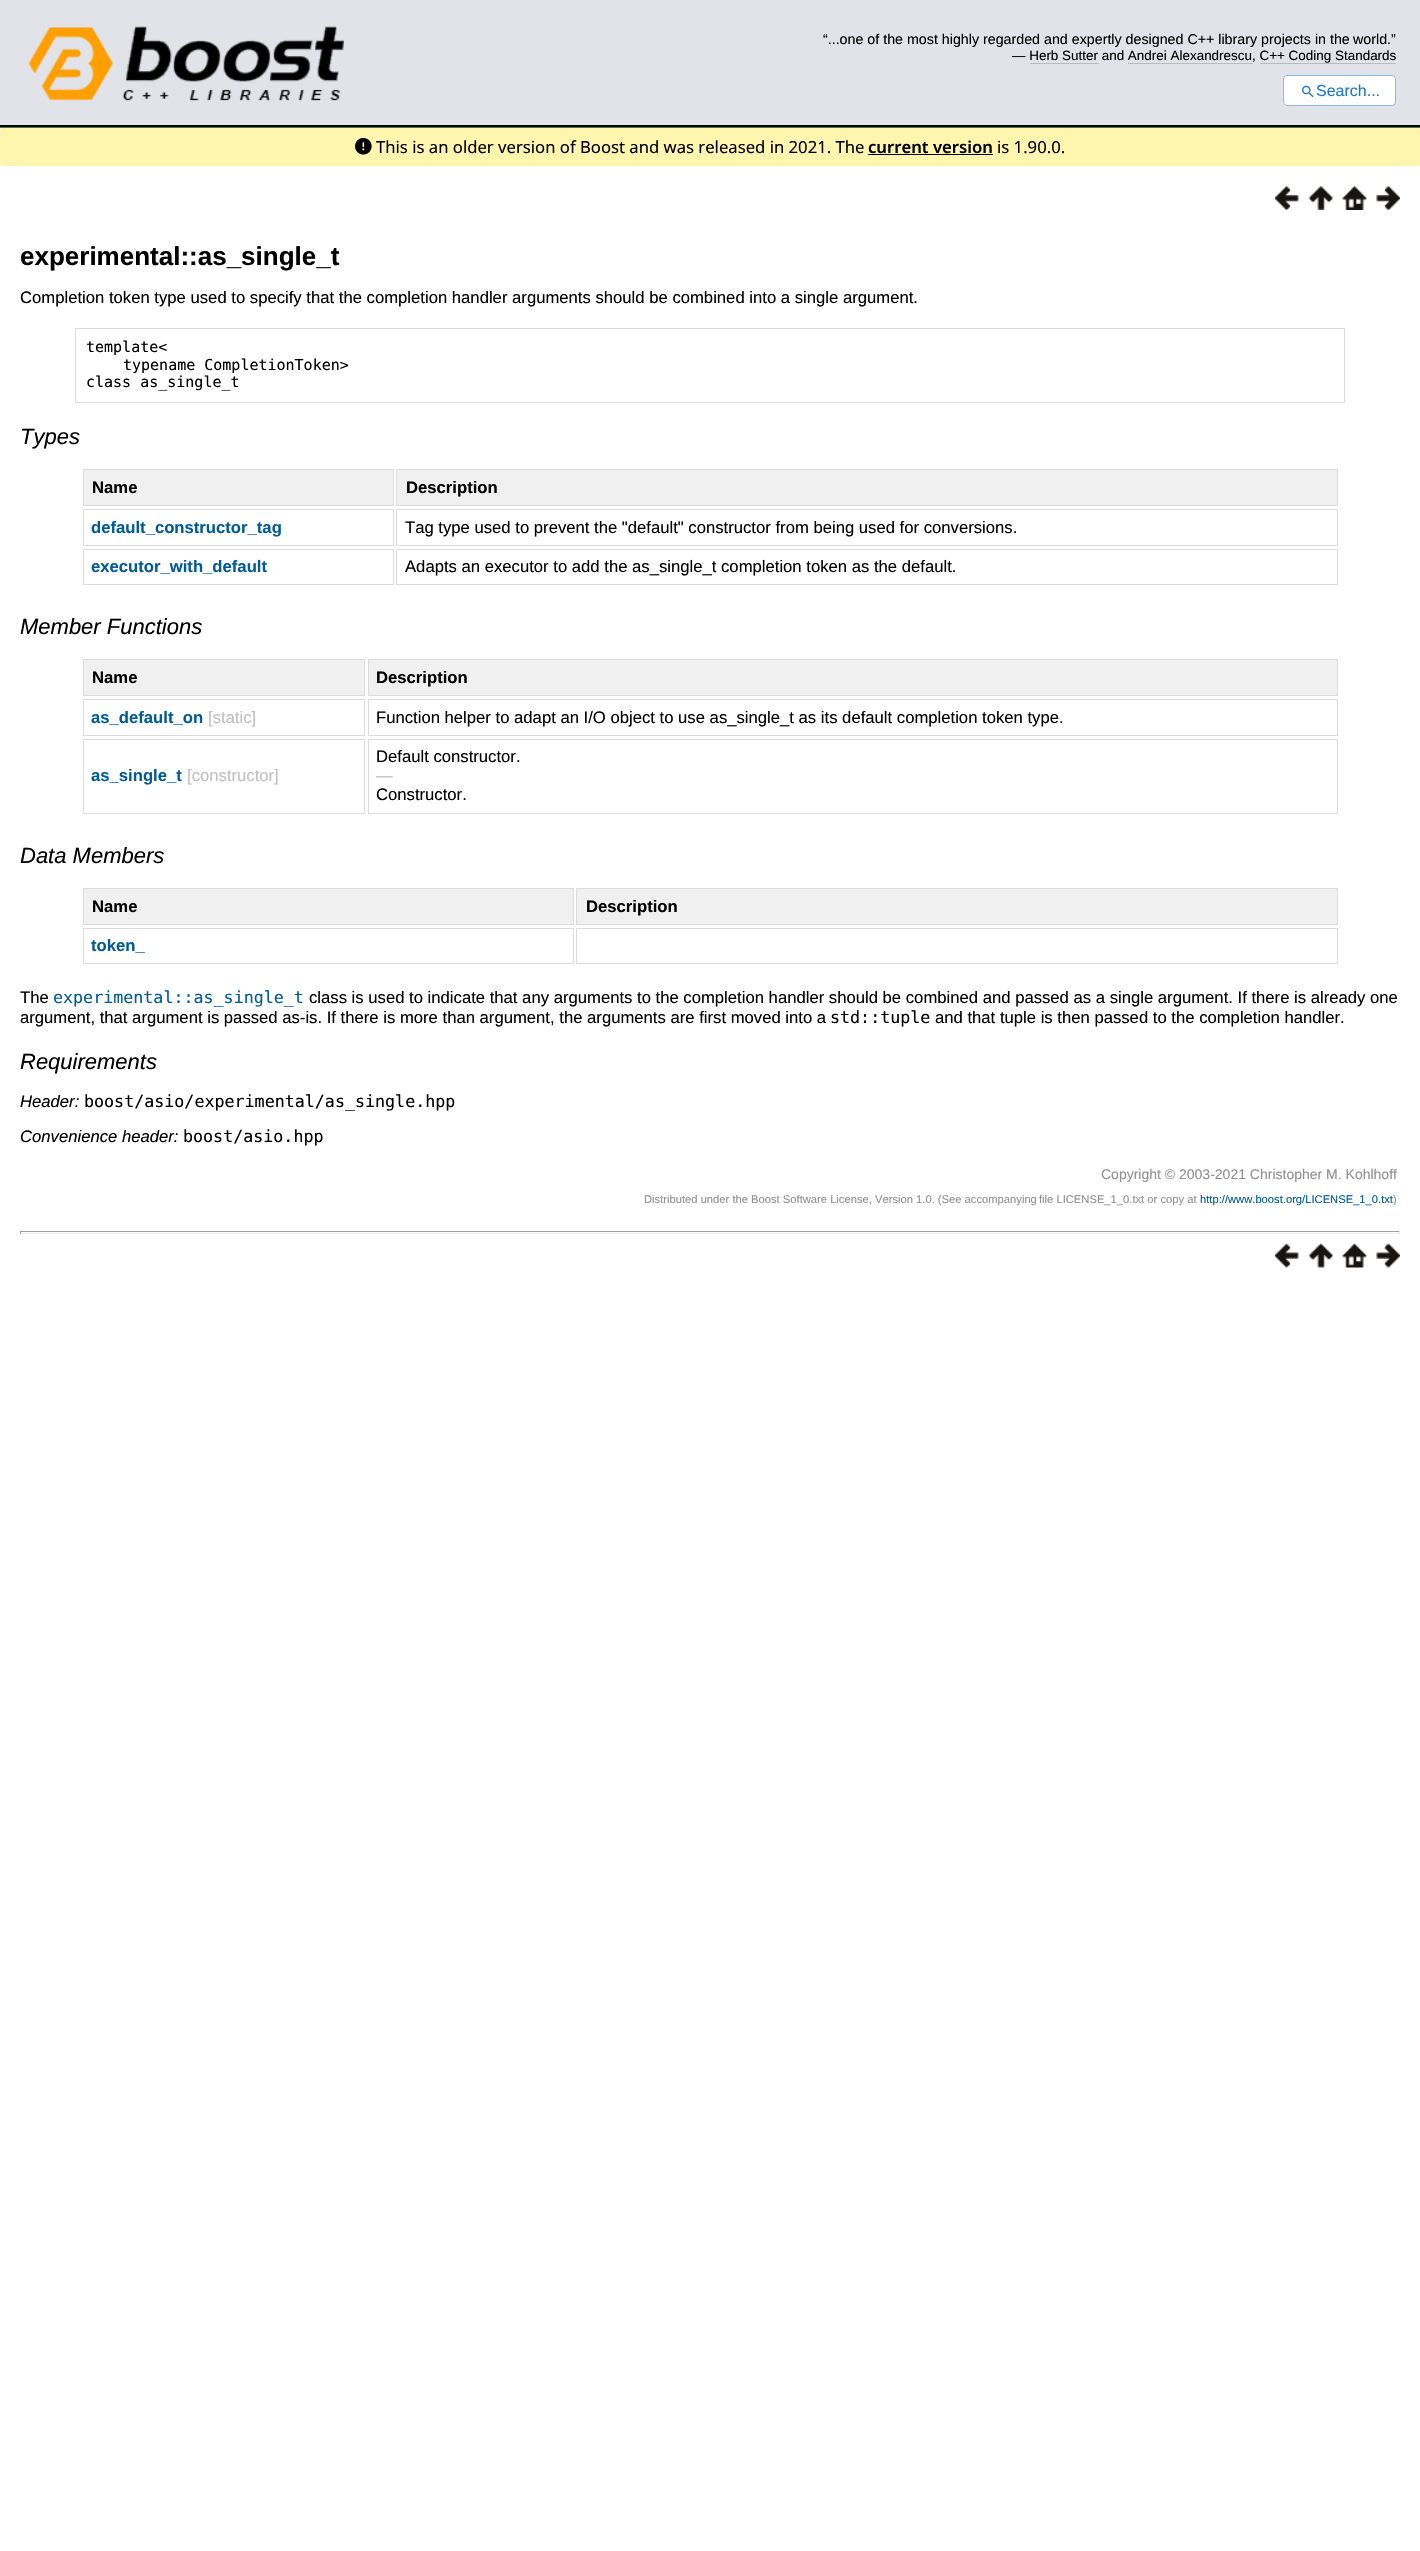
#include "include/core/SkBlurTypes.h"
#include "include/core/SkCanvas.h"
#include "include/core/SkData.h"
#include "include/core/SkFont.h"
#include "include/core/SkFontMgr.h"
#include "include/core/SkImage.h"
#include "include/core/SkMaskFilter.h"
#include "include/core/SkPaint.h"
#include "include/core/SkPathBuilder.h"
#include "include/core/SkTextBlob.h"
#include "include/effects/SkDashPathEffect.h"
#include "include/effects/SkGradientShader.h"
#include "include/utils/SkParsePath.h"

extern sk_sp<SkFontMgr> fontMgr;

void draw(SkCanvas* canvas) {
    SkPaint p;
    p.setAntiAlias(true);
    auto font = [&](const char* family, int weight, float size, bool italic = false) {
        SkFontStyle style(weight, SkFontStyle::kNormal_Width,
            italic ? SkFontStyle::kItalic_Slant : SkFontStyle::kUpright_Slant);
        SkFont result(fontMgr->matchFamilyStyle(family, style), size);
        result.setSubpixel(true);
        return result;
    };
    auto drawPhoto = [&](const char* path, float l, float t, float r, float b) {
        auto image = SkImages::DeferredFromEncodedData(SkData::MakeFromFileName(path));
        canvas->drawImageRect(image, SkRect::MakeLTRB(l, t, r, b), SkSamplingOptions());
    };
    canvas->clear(0xFFFFFFFF);
    {
        const struct { float l, t, r, b; SkColor color; } items[] = {
            {0, 127, 1420, 128, 0xFF4F744D},
            {0, 0, 1420, 125, 0xFFE1E3E8},
            {0, 125, 1420, 127, 0xFF000000},
        };
        for (auto [l, t, r, b, color] : items) {
            p.setColor(color);
            canvas->drawRect(SkRect::MakeLTRB(l, t, r, b), p);
        }
    }
    drawPhoto("media/1.png", 28, 26, 344, 101);
    auto font1 = font("Liberation Sans", 400, 14.25f);
    canvas->drawString("“...one of the most highly regarded and expertly designed C++ library projects in the", 823, 44, font1, p);
    canvas->drawString("world.”", 1353, 44, font1, p);
    auto font2 = font("Liberation Sans", 400, 13.45f);
    canvas->drawString("— Herb Sutter and Andrei Alexandrescu, C++ Coding Standards", 1012, 60, font2, p);
    {
        const struct { float l, t, r, b; SkColor color; } items[] = {
            {1030, 63, 1099, 64, 0xFFBBBBBB},
            {1128, 63, 1253, 64, 0xFFBBBBBB},
            {1260, 63, 1396, 64, 0xFFBBBBBB},
        };
        for (auto [l, t, r, b, color] : items) {
            p.setColor(color);
            canvas->drawRect(SkRect::MakeLTRB(l, t, r, b), p);
        }
    }
    p.setColor(0xFFFFFFFF);
    canvas->drawRoundRect(SkRect::MakeLTRB(1283, 75, 1396, 106), 4, 4, p);
    p.setStyle(SkPaint::kStroke_Style);
    p.setStrokeWidth(1);
    p.setColor(0x801976D2);
    canvas->drawRoundRect(SkRect::MakeLTRB(1283.5f, 75.5f, 1395.5f, 105.5f), 3.5f, 3.5f, p);
    drawPhoto("media/2.png", 1302, 85, 1314, 98);
    auto font3 = font("Liberation Sans", 400, 16);
    p.setStyle(SkPaint::kFill_Style);
    p.setColor(0xFF1976D2);
    canvas->drawString("Search...", 1316, 96, font3, p);
    p.setColor(0xFFFEF5AE);
    canvas->drawRoundRect(SkRect::MakeLTRB(0, 128, 1420, 166), 2.5f, 2.5f, p);
    drawPhoto("media/3.png", 355, 137, 372, 155);
    auto font4 = font("Noto Sans", 400, 16.67f);
    p.setColor(0xFF000000);
    canvas->drawString("This is an older version of Boost and was released in 2021. The", 376, 153, font4, p);
    auto font5 = font("Noto Sans", 600, 16.67f);
    canvas->drawString("current version", 868, 153, font5, p);
    canvas->drawRect(SkRect::MakeLTRB(868, 154, 993, 155), p);
    canvas->drawString("is 1.90.0.", 997, 153, font4, p);
    drawPhoto("media/4.png", 1275, 186, 1299, 210);
    drawPhoto("media/5.png", 1308, 186, 1333, 210);
    drawPhoto("media/6.png", 1342, 186, 1367, 210);
    drawPhoto("media/7.png", 1376, 186, 1400, 210);
    auto font6 = font("Liberation Sans", 700, 26);
    canvas->drawString("experimental::as_single_t", 20, 265, font6, p);
    auto font7 = font("Liberation Sans", 400, 16.67f);
    canvas->drawString("Completion token type used to specify that the completion handler arguments should be combined into a single argument.", 20, 303, font7, p);
    p.setStyle(SkPaint::kStroke_Style);
    p.setColor(0xFFDCDCDC);
    canvas->drawRect(SkRect::MakeLTRB(75.5f, 328.5f, 1344.5f, 402.5f), p);
    auto font8 = font("DejaVu Sans Mono", 400, 15);
    p.setStyle(SkPaint::kFill_Style);
    p.setColor(0xFF000000);
    {
        const struct { const char* s; float x, y; } items[] = {
            {"template<", 86, 352},
            {"typename CompletionToken>", 123, 370},
            {"class as_single_t", 86, 387},
        };
        for (auto [s, x, y] : items) {
            canvas->drawString(s, x, y, font8, p);
        }
    }
    auto font9 = font("Liberation Sans", 400, 22, true);
    canvas->drawString("Types", 20, 444, font9, p);
    p.setColor(0xFFF0F0F0);
    canvas->drawRect(SkRect::MakeLTRB(83.5f, 469.5f, 393.5f, 505.5f), p);
    p.setStyle(SkPaint::kStroke_Style);
    p.setColor(0xFFDCDCDC);
    canvas->drawRect(SkRect::MakeLTRB(83.5f, 469.5f, 393.5f, 505.5f), p);
    auto font10 = font("Liberation Sans", 700, 16.67f);
    p.setStyle(SkPaint::kFill_Style);
    p.setColor(0xFF000000);
    canvas->drawString("Name", 92, 493, font10, p);
    p.setColor(0xFFF0F0F0);
    canvas->drawRect(SkRect::MakeLTRB(396.5f, 469.5f, 1337.5f, 505.5f), p);
    p.setStyle(SkPaint::kStroke_Style);
    p.setColor(0xFFDCDCDC);
    canvas->drawRect(SkRect::MakeLTRB(396.5f, 469.5f, 1337.5f, 505.5f), p);
    p.setStyle(SkPaint::kFill_Style);
    p.setColor(0xFF000000);
    canvas->drawString("Description", 406, 493, font10, p);
    p.setStyle(SkPaint::kStroke_Style);
    p.setColor(0xFFDCDCDC);
    canvas->drawRect(SkRect::MakeLTRB(83.5f, 509.5f, 393.5f, 545.5f), p);
    p.setStyle(SkPaint::kFill_Style);
    p.setColor(0xFF005A9C);
    canvas->drawString("default_constructor_tag", 91, 533, font10, p);
    p.setStyle(SkPaint::kStroke_Style);
    p.setColor(0xFFDCDCDC);
    canvas->drawRect(SkRect::MakeLTRB(396.5f, 509.5f, 1337.5f, 545.5f), p);
    p.setStyle(SkPaint::kFill_Style);
    p.setColor(0xFF000000);
    canvas->drawString("Tag type used to prevent the \"default\" constructor from being used for conversions.", 405, 533, font7, p);
    p.setStyle(SkPaint::kStroke_Style);
    p.setColor(0xFFDCDCDC);
    canvas->drawRect(SkRect::MakeLTRB(83.5f, 549.5f, 393.5f, 584.5f), p);
    p.setStyle(SkPaint::kFill_Style);
    p.setColor(0xFF005A9C);
    canvas->drawString("executor_with_default", 91, 572, font10, p);
    p.setStyle(SkPaint::kStroke_Style);
    p.setColor(0xFFDCDCDC);
    canvas->drawRect(SkRect::MakeLTRB(396.5f, 549.5f, 1337.5f, 584.5f), p);
    p.setStyle(SkPaint::kFill_Style);
    p.setColor(0xFF000000);
    canvas->drawString("Adapts an executor to add the as_single_t completion token as the default.", 405, 572, font7, p);
    canvas->drawString("Member Functions", 20, 634, font9, p);
    p.setColor(0xFFF0F0F0);
    canvas->drawRect(SkRect::MakeLTRB(83.5f, 659.5f, 364.5f, 695.5f), p);
    p.setStyle(SkPaint::kStroke_Style);
    p.setColor(0xFFDCDCDC);
    canvas->drawRect(SkRect::MakeLTRB(83.5f, 659.5f, 364.5f, 695.5f), p);
    p.setStyle(SkPaint::kFill_Style);
    p.setColor(0xFF000000);
    canvas->drawString("Name", 92, 683, font10, p);
    p.setColor(0xFFF0F0F0);
    canvas->drawRect(SkRect::MakeLTRB(368.5f, 659.5f, 1337.5f, 695.5f), p);
    p.setStyle(SkPaint::kStroke_Style);
    p.setColor(0xFFDCDCDC);
    canvas->drawRect(SkRect::MakeLTRB(368.5f, 659.5f, 1337.5f, 695.5f), p);
    p.setStyle(SkPaint::kFill_Style);
    p.setColor(0xFF000000);
    canvas->drawString("Description", 376, 683, font10, p);
    p.setStyle(SkPaint::kStroke_Style);
    p.setColor(0xFFDCDCDC);
    canvas->drawRect(SkRect::MakeLTRB(83.5f, 699.5f, 364.5f, 735.5f), p);
    p.setStyle(SkPaint::kFill_Style);
    p.setColor(0xFF005A9C);
    canvas->drawString("as_default_on", 91, 723, font10, p);
    p.setColor(0xFFC0C0C0);
    canvas->drawString("[static]", 208, 723, font7, p);
    p.setStyle(SkPaint::kStroke_Style);
    p.setColor(0xFFDCDCDC);
    canvas->drawRect(SkRect::MakeLTRB(368.5f, 699.5f, 1337.5f, 735.5f), p);
    p.setStyle(SkPaint::kFill_Style);
    p.setColor(0xFF000000);
    canvas->drawString("Function helper to adapt an I/O object to use as_single_t as its default completion token type.", 376, 723, font7, p);
    p.setStyle(SkPaint::kStroke_Style);
    p.setColor(0xFFDCDCDC);
    canvas->drawRect(SkRect::MakeLTRB(83.5f, 739.5f, 364.5f, 813.5f), p);
    p.setStyle(SkPaint::kFill_Style);
    p.setColor(0xFF005A9C);
    canvas->drawString("as_single_t", 91, 781, font10, p);
    p.setColor(0xFFC0C0C0);
    canvas->drawString("[constructor]", 187, 781, font7, p);
    p.setStyle(SkPaint::kStroke_Style);
    p.setColor(0xFFDCDCDC);
    canvas->drawRect(SkRect::MakeLTRB(368.5f, 739.5f, 1337.5f, 813.5f), p);
    p.setStyle(SkPaint::kFill_Style);
    p.setColor(0xFF000000);
    canvas->drawString("Default constructor.", 376, 762, font7, p);
    p.setColor(0xFFC0C0C0);
    canvas->drawString("—", 376, 781, font7, p);
    p.setColor(0xFF000000);
    canvas->drawString("Constructor.", 376, 800, font7, p);
    canvas->drawString("Data Members", 20, 863, font9, p);
    p.setColor(0xFFF0F0F0);
    canvas->drawRect(SkRect::MakeLTRB(83.5f, 888.5f, 573.5f, 924.5f), p);
    p.setStyle(SkPaint::kStroke_Style);
    p.setColor(0xFFDCDCDC);
    canvas->drawRect(SkRect::MakeLTRB(83.5f, 888.5f, 573.5f, 924.5f), p);
    p.setStyle(SkPaint::kFill_Style);
    p.setColor(0xFF000000);
    canvas->drawString("Name", 92, 912, font10, p);
    p.setColor(0xFFF0F0F0);
    canvas->drawRect(SkRect::MakeLTRB(576.5f, 888.5f, 1337.5f, 924.5f), p);
    p.setStyle(SkPaint::kStroke_Style);
    p.setColor(0xFFDCDCDC);
    canvas->drawRect(SkRect::MakeLTRB(576.5f, 888.5f, 1337.5f, 924.5f), p);
    p.setStyle(SkPaint::kFill_Style);
    p.setColor(0xFF000000);
    canvas->drawString("Description", 586, 912, font10, p);
    p.setStyle(SkPaint::kStroke_Style);
    p.setColor(0xFFDCDCDC);
    canvas->drawRect(SkRect::MakeLTRB(83.5f, 928.5f, 573.5f, 963.5f), p);
    p.setStyle(SkPaint::kFill_Style);
    p.setColor(0xFF005A9C);
    canvas->drawString("token_", 91, 951, font10, p);
    p.setStyle(SkPaint::kStroke_Style);
    p.setColor(0xFFDCDCDC);
    canvas->drawRect(SkRect::MakeLTRB(576.5f, 928.5f, 1337.5f, 963.5f), p);
    p.setStyle(SkPaint::kFill_Style);
    p.setColor(0xFF000000);
    canvas->drawString("The", 20, 1003, font7, p);
    auto font11 = font("DejaVu Sans Mono", 400, 16.67f);
    p.setColor(0xFF005A9C);
    canvas->drawString("experimental::as_single_t", 53, 1003, font11, p);
    p.setColor(0xFF000000);
    canvas->drawString("class is used to indicate that any arguments to the completion handler should be combined and passed as a single argument. If there is already one", 309, 1003, font7, p);
    canvas->drawString("argument, that argument is passed as-is. If there is more than argument, the arguments are first moved into a", 20, 1023, font7, p);
    canvas->drawString("std::tuple", 830, 1023, font11, p);
    canvas->drawString("and that tuple is then passed to the completion handler.", 935, 1023, font7, p);
    canvas->drawString("Requirements", 20, 1069, font9, p);
    auto font12 = font("Liberation Sans", 400, 16.67f, true);
    canvas->drawString("Header:", 20, 1107, font12, p);
    canvas->drawString("boost/asio/experimental/as_single.hpp", 84, 1107, font11, p);
    canvas->drawString("Convenience header:", 20, 1142, font12, p);
    canvas->drawString("boost/asio.hpp", 183, 1142, font11, p);
    auto font13 = font("Liberation Sans", 400, 14);
    p.setColor(0xFF8F8F8F);
    canvas->drawString("Copyright © 2003-2021 Christopher M. Kohlhoff", 1101, 1179, font13, p);
    auto font14 = font("Liberation Sans", 400, 11.2f);
    canvas->drawString("Distributed under the Boost Software License, Version 1.0. (See accompanying", 644, 1203, font14, p);
    canvas->drawString("file LICENSE_1_0.txt or copy at", 1039, 1203, font14, p);
    p.setColor(0xFF005A9C);
    canvas->drawString("http://www.boost.org/LICENSE_1_0.txt", 1200, 1203, font14, p);
    p.setColor(0xFF8F8F8F);
    canvas->drawString(")", 1393, 1203, font14, p);
    {
        const struct { float l, t, r, b; SkColor color; } items[] = {
            {20, 1231, 1400, 1232, 0xFF9F9F9F},
            {1399, 1231, 1400, 1234, 0xFFEEEEEE},
            {20, 1233, 1400, 1234, 0xFFEEEEEE},
            {20, 1231, 21, 1234, 0xFF9F9F9F},
        };
        for (auto [l, t, r, b, color] : items) {
            p.setColor(color);
            canvas->drawRect(SkRect::MakeLTRB(l, t, r, b), p);
        }
    }
    drawPhoto("media/8.png", 1275, 1243, 1299, 1268);
    drawPhoto("media/9.png", 1308, 1243, 1333, 1268);
    drawPhoto("media/10.png", 1342, 1243, 1367, 1268);
    drawPhoto("media/11.png", 1376, 1243, 1400, 1268);
}
